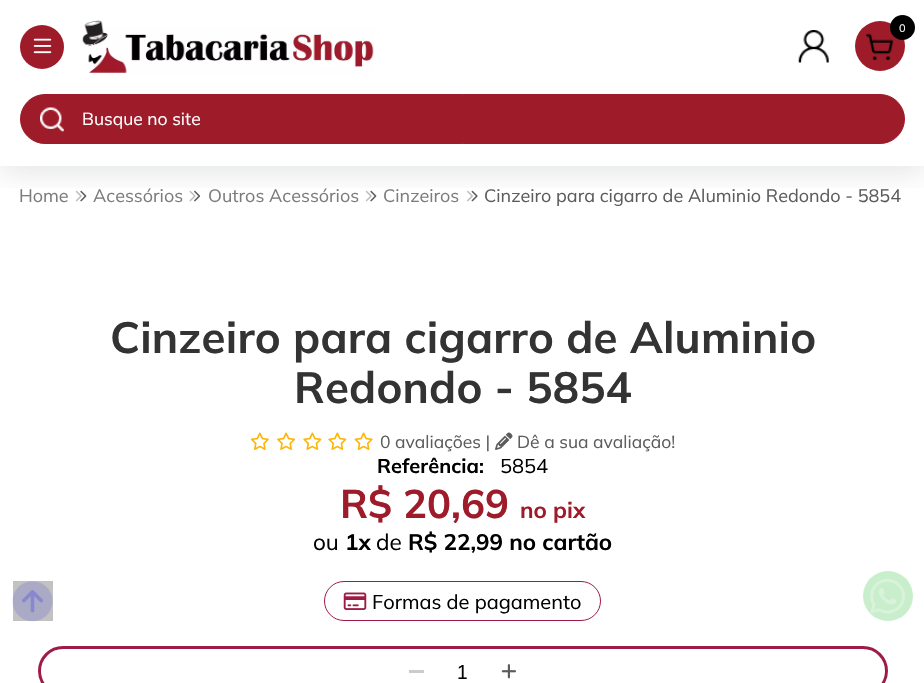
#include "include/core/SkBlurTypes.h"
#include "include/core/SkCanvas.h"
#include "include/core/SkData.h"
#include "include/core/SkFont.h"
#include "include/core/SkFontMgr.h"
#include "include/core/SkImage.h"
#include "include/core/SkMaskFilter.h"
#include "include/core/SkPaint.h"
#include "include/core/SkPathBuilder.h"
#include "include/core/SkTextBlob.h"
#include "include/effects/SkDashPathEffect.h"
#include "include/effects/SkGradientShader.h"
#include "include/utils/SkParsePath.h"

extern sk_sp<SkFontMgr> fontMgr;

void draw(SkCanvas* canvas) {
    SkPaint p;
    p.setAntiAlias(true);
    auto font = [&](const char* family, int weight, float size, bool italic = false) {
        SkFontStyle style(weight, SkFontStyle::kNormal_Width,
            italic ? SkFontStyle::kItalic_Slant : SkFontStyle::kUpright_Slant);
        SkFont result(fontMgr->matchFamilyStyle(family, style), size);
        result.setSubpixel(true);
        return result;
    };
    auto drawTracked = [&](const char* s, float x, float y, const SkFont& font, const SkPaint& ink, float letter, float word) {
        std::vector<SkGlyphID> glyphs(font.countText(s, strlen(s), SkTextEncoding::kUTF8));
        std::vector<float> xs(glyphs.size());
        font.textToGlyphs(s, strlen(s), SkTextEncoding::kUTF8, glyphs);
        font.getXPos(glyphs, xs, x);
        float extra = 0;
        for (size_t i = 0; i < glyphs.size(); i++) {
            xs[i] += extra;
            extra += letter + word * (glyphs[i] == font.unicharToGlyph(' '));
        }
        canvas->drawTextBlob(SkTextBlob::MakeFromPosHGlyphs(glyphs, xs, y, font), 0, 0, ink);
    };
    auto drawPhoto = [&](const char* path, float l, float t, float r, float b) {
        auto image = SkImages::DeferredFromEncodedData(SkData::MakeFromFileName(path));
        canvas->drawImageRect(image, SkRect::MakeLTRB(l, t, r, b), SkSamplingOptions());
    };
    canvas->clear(0xFFFFFFFF);
    canvas->save();
    canvas->clipRect(SkRect::MakeLTRB(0, 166, 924, 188));
    p.setColor(0x26393E43);
    p.setMaskFilter(SkMaskFilter::MakeBlur(kNormal_SkBlurStyle, 15));
    canvas->drawRect(SkRect::MakeLTRB(0, 5, 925, 171), p);
    p.setMaskFilter(nullptr);
    canvas->restore();
    p.setColor(0xFF9E1B29);
    canvas->drawCircle(42, 47, 22, p);
    drawPhoto("media/1.png", 33, 38, 52, 54);
    drawPhoto("media/2.png", 82, 20, 374, 74);
    canvas->drawCircle(880, 46, 25, p);
    drawPhoto("media/3.png", 866, 33, 894, 60);
    p.setColor(0xFF000000);
    canvas->drawCircle(902.5f, 27.5f, 12.5f, p);
    auto font1 = font("Mulish", 400, 11);
    p.setColor(0xFFFFFFFF);
    canvas->drawString("0", 899, 32, font1, p);
    drawPhoto("media/4.png", 798, 30, 829, 63);
    p.setColor(0xFF9E1B29);
    canvas->drawRoundRect(SkRect::MakeLTRB(20.5f, 94.5f, 904.5f, 143.5f), 24.5f, 24.5f, p);
    p.setStyle(SkPaint::kStroke_Style);
    p.setStrokeWidth(1);
    canvas->drawRoundRect(SkRect::MakeLTRB(20.5f, 94.5f, 904.5f, 143.5f), 24.5f, 24.5f, p);
    drawPhoto("media/5.png", 40, 107, 64, 132);
    auto font2 = font("Mulish", 400, 17.5f);
    p.setStyle(SkPaint::kFill_Style);
    p.setColor(0xFFFFFFFF);
    canvas->drawString("Busque no site", 82, 125, font2, p);
    auto font3 = font("Mulish", 400, 18);
    p.setColor(0xFF7C7C7C);
    canvas->drawString("Home", 19, 202, font3, p);
    drawPhoto("media/6.png", 75, 190, 87, 202);
    canvas->drawString("Acessórios", 93, 202, font3, p);
    drawPhoto("media/7.png", 189, 190, 201, 202);
    canvas->drawString("Outros Acessórios", 208, 202, font3, p);
    drawPhoto("media/6.png", 365, 190, 377, 202);
    canvas->drawString("Cinzeiros", 383, 202, font3, p);
    drawPhoto("media/8.png", 467, 190, 478, 202);
    p.setColor(0xFF5C5C5C);
    canvas->drawString("Cinzeiro para cigarro de Aluminio Redondo - 5854", 484, 202, font3, p);
    p.setColor(0xFFC2C2C2);
    canvas->drawRect(SkRect::MakeLTRB(13, 581, 53, 621), p);
    drawPhoto("media/9.png", 12, 581, 53, 622);
    auto font4 = font("Mulish", 700, 43.75f);
    p.setColor(0xFF333333);
    drawTracked("Cinzeiro para cigarro de Aluminio", 110, 353, font4, p, 0.2f, 0);
    drawTracked("Redondo - 5854", 294, 403, font4, p, 0.2f, 0);
    drawPhoto("media/10.png", 250, 432, 269, 450);
    drawPhoto("media/11.png", 277, 432, 296, 450);
    drawPhoto("media/12.png", 303, 432, 322, 450);
    drawPhoto("media/12.png", 328, 432, 347, 450);
    drawPhoto("media/13.png", 354, 432, 373, 450);
    p.setColor(0xFF5C5C5C);
    canvas->drawString("0 avaliações |", 380, 448, font2, p);
    drawPhoto("media/14.png", 495, 432, 513, 450);
    canvas->drawString("Dê a sua avaliação!", 517, 448, font2, p);
    auto font5 = font("Mulish", 700, 20);
    p.setColor(0xFF000000);
    canvas->drawString("Referência:", 377, 473, font5, p);
    auto font6 = font("Mulish", 400, 20);
    canvas->drawString("5854", 500, 473, font6, p);
    auto font7 = font("Mulish", 700, 40);
    p.setColor(0xFF9E1B29);
    canvas->drawString("R$ 20,69", 340, 518, font7, p);
    auto font8 = font("Mulish", 700, 22.5f);
    canvas->drawString("no pix", 520, 518, font8, p);
    auto font9 = font("Mulish", 400, 22.5f);
    p.setColor(0xFF000000);
    canvas->drawString("ou", 313, 550, font9, p);
    canvas->drawString("1x", 345, 550, font8, p);
    canvas->drawString("de", 376, 550, font9, p);
    canvas->drawString("R$ 22,99 no cartão", 408, 550, font8, p);
    p.setStyle(SkPaint::kStroke_Style);
    p.setColor(0xFF9E1B45);
    canvas->drawRoundRect(SkRect::MakeLTRB(324.5f, 581.5f, 600.5f, 620.5f), 19.5f, 19.5f, p);
    drawPhoto("media/15.png", 343, 592, 367, 610);
    p.setStyle(SkPaint::kFill_Style);
    p.setColor(0xFF000000);
    canvas->drawString("Formas de pagamento", 372, 609, font6, p);
    p.setStyle(SkPaint::kStroke_Style);
    p.setStrokeWidth(3);
    p.setColor(0xFF9E1B45);
    canvas->drawRoundRect(SkRect::MakeLTRB(39.5f, 647.5f, 886.5f, 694.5f), 23.5f, 23.5f, p);
    p.setStyle(SkPaint::kFill_Style);
    p.setColor(0xFFCCCCCC);
    canvas->drawRect(SkRect::MakeLTRB(409, 670, 424, 673), p);
    p.setColor(0xFF000000);
    canvas->drawString("1", 456, 679, font6, p);
    drawPhoto("media/16.png", 501, 664, 516, 679);
    p.setColor(0xFFC9EECC);
    canvas->drawCircle(888, 596, 25, p);
    drawPhoto("media/17.png", 870, 578, 905, 614);
}
